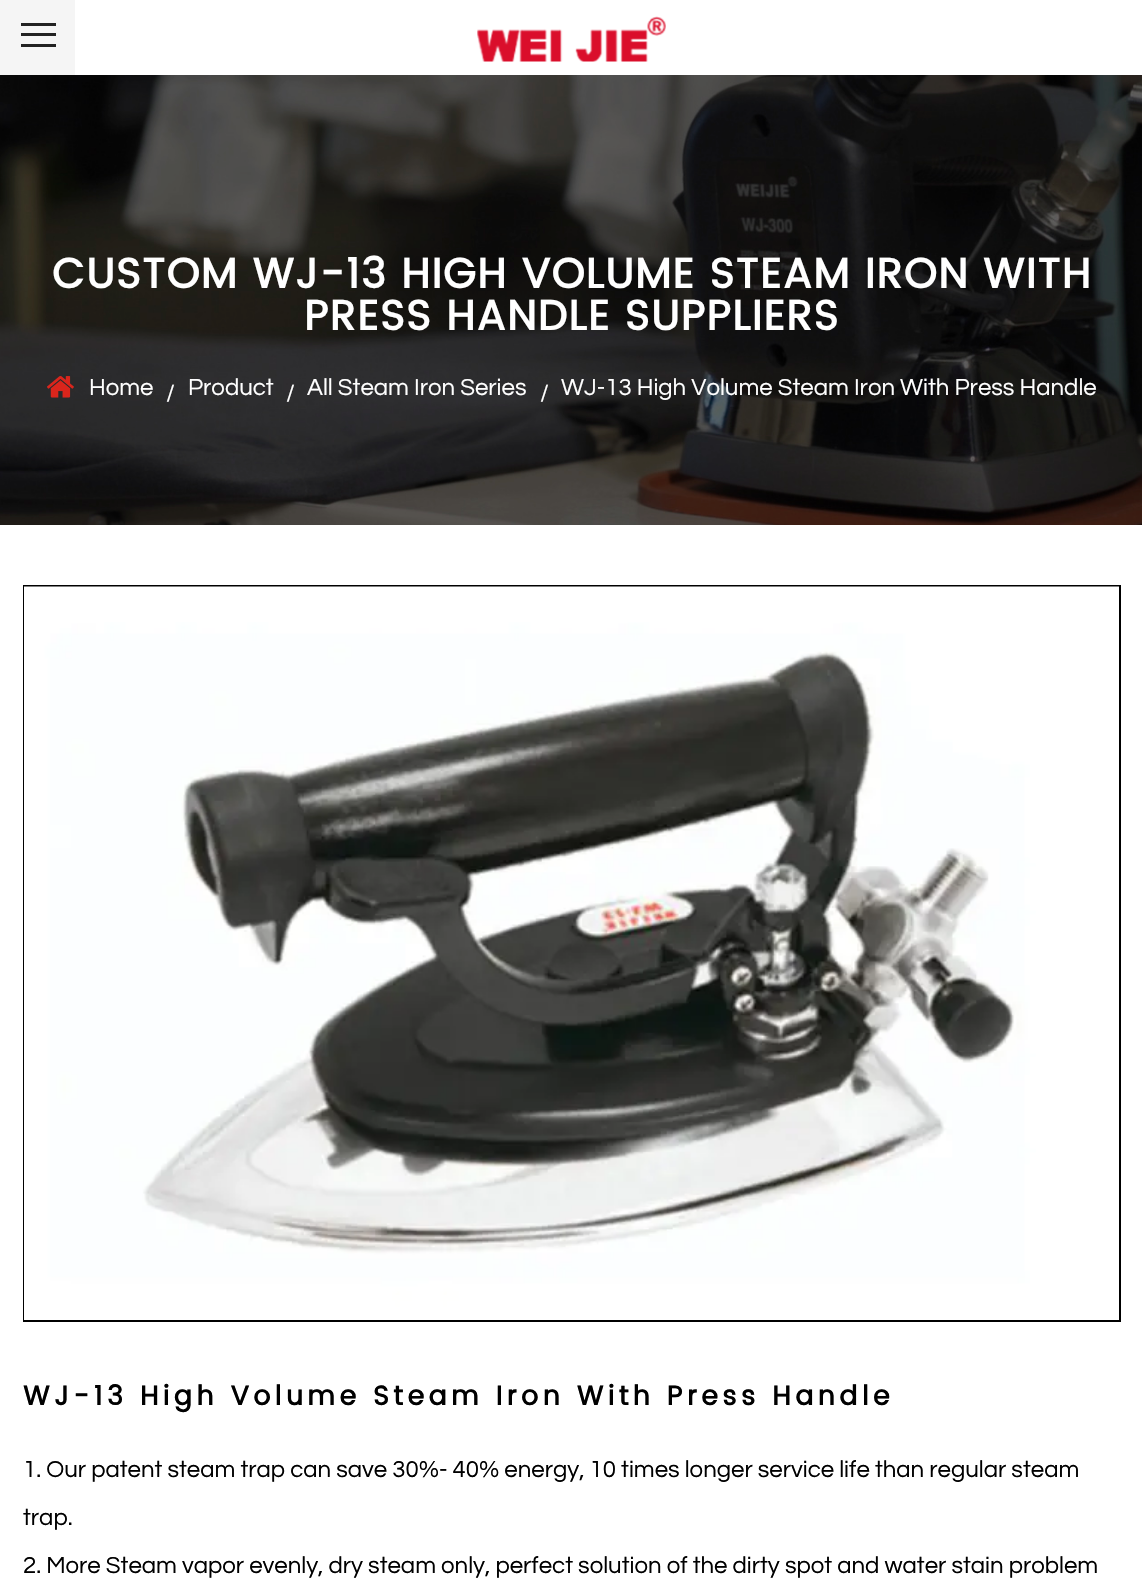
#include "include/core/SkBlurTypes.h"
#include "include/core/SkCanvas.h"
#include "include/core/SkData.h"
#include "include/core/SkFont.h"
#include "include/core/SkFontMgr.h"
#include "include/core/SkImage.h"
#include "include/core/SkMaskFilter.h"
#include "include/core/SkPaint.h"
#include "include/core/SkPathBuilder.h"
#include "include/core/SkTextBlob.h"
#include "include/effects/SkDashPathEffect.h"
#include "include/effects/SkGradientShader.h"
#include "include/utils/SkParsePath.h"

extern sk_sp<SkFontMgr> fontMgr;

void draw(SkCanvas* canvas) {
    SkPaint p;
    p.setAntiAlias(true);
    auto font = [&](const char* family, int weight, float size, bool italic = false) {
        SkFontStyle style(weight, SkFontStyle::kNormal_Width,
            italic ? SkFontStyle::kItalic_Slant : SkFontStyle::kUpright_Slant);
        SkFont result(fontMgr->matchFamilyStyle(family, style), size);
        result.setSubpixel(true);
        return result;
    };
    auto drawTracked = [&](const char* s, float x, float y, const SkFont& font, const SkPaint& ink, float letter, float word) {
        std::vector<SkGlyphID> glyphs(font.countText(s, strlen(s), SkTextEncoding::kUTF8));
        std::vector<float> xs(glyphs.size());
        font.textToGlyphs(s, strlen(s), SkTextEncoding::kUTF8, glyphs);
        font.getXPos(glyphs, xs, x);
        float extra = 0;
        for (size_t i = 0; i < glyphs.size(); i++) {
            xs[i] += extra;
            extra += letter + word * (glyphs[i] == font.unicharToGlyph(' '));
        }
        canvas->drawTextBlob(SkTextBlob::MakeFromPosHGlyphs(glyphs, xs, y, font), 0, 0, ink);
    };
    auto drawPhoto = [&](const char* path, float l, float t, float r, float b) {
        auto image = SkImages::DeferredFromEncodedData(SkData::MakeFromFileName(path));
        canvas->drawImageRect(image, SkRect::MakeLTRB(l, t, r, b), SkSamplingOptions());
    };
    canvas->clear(0xFFFFFFFF);
    {
        const struct { float l, t, r, b; SkColor color; } items[] = {
            {0, 0, 75, 75, 0xFFF5F5F5},
            {21, 23, 56, 26, 0xFF222222},
            {21, 33, 56, 36, 0xFF222222},
            {21, 44, 56, 47, 0xFF222222},
        };
        for (auto [l, t, r, b, color] : items) {
            p.setColor(color);
            canvas->drawRect(SkRect::MakeLTRB(l, t, r, b), p);
        }
    }
    drawPhoto("media/1.png", 477, 16, 666, 62);
    drawPhoto("media/2.png", 0, 75, 1142, 525);
    auto font1 = font("Poppins", 700, 42);
    p.setColor(0xFFFFFFFF);
    drawTracked("CUSTOM WJ-13 HIGH VOLUME STEAM IRON WITH", 52, 288, font1, p, 1.5f, 0);
    drawTracked("PRESS HANDLE SUPPLIERS", 304, 330, font1, p, 1.5f, 0);
    drawPhoto("media/3.png", 47, 376, 74, 398);
    auto font2 = font("Questrial", 400, 24);
    {
        const struct { const char* s; float x, y; } items[] = {
            {"Home", 89, 395},
            {"/", 166, 401},
            {"Product", 188, 395},
            {"/", 286, 401},
            {"All Steam Iron Series", 307, 395},
            {"/", 540, 401},
            {"WJ-13 High Volume Steam Iron With Press Handle", 561, 395},
        };
        for (auto [s, x, y] : items) {
            canvas->drawString(s, x, y, font2, p);
        }
    }
    p.setStyle(SkPaint::kStroke_Style);
    p.setStrokeWidth(2);
    p.setColor(0xFF000000);
    canvas->drawRect(SkRect::MakeLTRB(24, 586, 1120, 1321), p);
    drawPhoto("media/4.png", 24, 586, 1119, 1320);
    auto font3 = font("Poppins", 700, 27);
    p.setStyle(SkPaint::kFill_Style);
    drawTracked("WJ-13 High Volume Steam Iron With Press Handle", 23, 1405, font3, p, 4.5f, 0);
    {
        const struct { const char* s; float x, y; } items[] = {
            {"1. Our patent steam trap can save 30%- 40% energy, 10 times longer service life than regular steam", 23, 1477},
            {"trap.", 23, 1525},
            {"2. More Steam vapor evenly, dry steam only, perfect solution of the dirty spot and water stain problem", 23, 1573},
        };
        for (auto [s, x, y] : items) {
            canvas->drawString(s, x, y, font2, p);
        }
    }
}
